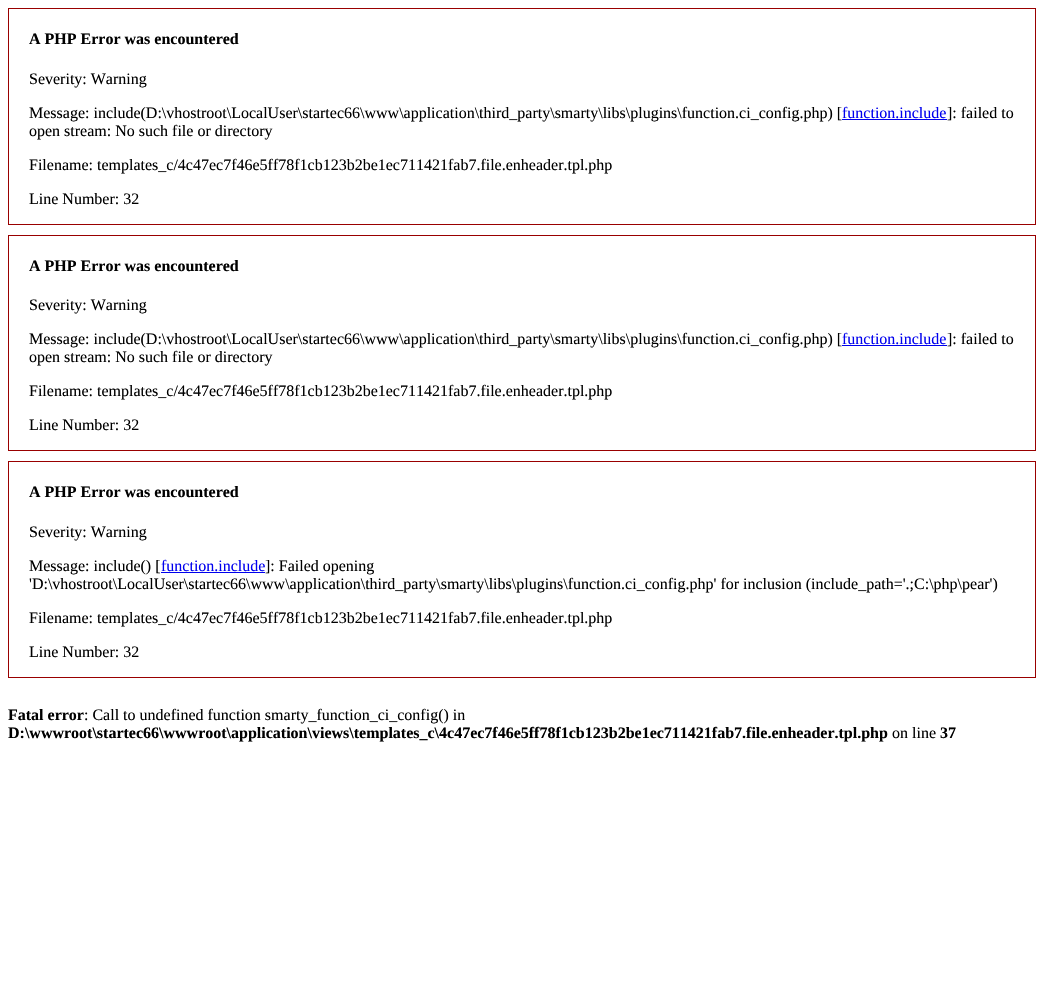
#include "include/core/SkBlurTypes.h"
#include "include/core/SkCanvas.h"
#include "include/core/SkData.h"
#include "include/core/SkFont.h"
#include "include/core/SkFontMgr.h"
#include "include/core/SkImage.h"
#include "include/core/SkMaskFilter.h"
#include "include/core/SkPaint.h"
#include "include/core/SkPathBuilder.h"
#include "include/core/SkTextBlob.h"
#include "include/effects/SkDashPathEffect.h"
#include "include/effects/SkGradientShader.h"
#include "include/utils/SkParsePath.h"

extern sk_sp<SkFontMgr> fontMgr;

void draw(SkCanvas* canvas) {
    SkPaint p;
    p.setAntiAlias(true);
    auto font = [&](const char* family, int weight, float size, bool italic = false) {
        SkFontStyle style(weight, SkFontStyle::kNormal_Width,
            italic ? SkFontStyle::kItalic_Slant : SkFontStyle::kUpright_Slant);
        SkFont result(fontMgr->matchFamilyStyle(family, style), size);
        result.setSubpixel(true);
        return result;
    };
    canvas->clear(0xFFFFFFFF);
    p.setStyle(SkPaint::kStroke_Style);
    p.setStrokeWidth(1);
    p.setColor(0xFF990000);
    canvas->drawRect(SkRect::MakeLTRB(8.5f, 8.5f, 1035.5f, 224.5f), p);
    auto font1 = font("Liberation Serif", 700, 16);
    p.setStyle(SkPaint::kFill_Style);
    p.setColor(0xFF000000);
    canvas->drawString("A PHP Error was encountered", 29, 44, font1, p);
    auto font2 = font("Liberation Serif", 400, 16);
    canvas->drawString("Severity: Warning", 29, 84, font2, p);
    canvas->drawString("Message: include(D:\\vhostroot\\LocalUser\\startec66\\www\\application\\third_party\\smarty\\libs\\plugins\\function.ci_config.php) [", 29, 118, font2, p);
    p.setColor(0xFF0000EE);
    canvas->drawString("function.include", 842, 118, font2, p);
    canvas->drawRect(SkRect::MakeLTRB(842, 119, 947, 120), p);
    p.setColor(0xFF000000);
    {
        const struct { const char* s; float x, y; } items[] = {
            {"]: failed to", 947, 118},
            {"open stream: No such file or directory", 29, 136},
            {"Filename: templates_c/4c47ec7f46e5ff78f1cb123b2be1ec711421fab7.file.enheader.tpl.php", 29, 170},
            {"Line Number: 32", 29, 204},
        };
        for (auto [s, x, y] : items) {
            canvas->drawString(s, x, y, font2, p);
        }
    }
    p.setStyle(SkPaint::kStroke_Style);
    p.setColor(0xFF990000);
    canvas->drawRect(SkRect::MakeLTRB(8.5f, 235.5f, 1035.5f, 450.5f), p);
    p.setStyle(SkPaint::kFill_Style);
    p.setColor(0xFF000000);
    canvas->drawString("A PHP Error was encountered", 29, 271, font1, p);
    canvas->drawString("Severity: Warning", 29, 310, font2, p);
    canvas->drawString("Message: include(D:\\vhostroot\\LocalUser\\startec66\\www\\application\\third_party\\smarty\\libs\\plugins\\function.ci_config.php) [", 29, 344, font2, p);
    p.setColor(0xFF0000EE);
    canvas->drawString("function.include", 842, 344, font2, p);
    canvas->drawRect(SkRect::MakeLTRB(842, 345, 947, 346), p);
    p.setColor(0xFF000000);
    {
        const struct { const char* s; float x, y; } items[] = {
            {"]: failed to", 947, 344},
            {"open stream: No such file or directory", 29, 362},
            {"Filename: templates_c/4c47ec7f46e5ff78f1cb123b2be1ec711421fab7.file.enheader.tpl.php", 29, 396},
            {"Line Number: 32", 29, 430},
        };
        for (auto [s, x, y] : items) {
            canvas->drawString(s, x, y, font2, p);
        }
    }
    p.setStyle(SkPaint::kStroke_Style);
    p.setColor(0xFF990000);
    canvas->drawRect(SkRect::MakeLTRB(8.5f, 461.5f, 1035.5f, 677.5f), p);
    p.setStyle(SkPaint::kFill_Style);
    p.setColor(0xFF000000);
    canvas->drawString("A PHP Error was encountered", 29, 497, font1, p);
    canvas->drawString("Severity: Warning", 29, 537, font2, p);
    canvas->drawString("Message: include() [", 29, 571, font2, p);
    p.setColor(0xFF0000EE);
    canvas->drawString("function.include", 161, 571, font2, p);
    canvas->drawRect(SkRect::MakeLTRB(161, 572, 265, 573), p);
    p.setColor(0xFF000000);
    {
        const struct { const char* s; float x, y; } items[] = {
            {"]: Failed opening", 265, 571},
            {"'D:\\vhostroot\\LocalUser\\startec66\\www\\application\\third_party\\smarty\\libs\\plugins\\function.ci_config.php' for inclusion (include_path='.;C:\\php\\pear')", 29, 589},
            {"Filename: templates_c/4c47ec7f46e5ff78f1cb123b2be1ec711421fab7.file.enheader.tpl.php", 29, 623},
            {"Line Number: 32", 29, 657},
        };
        for (auto [s, x, y] : items) {
            canvas->drawString(s, x, y, font2, p);
        }
    }
    canvas->drawString("Fatal error", 8, 720, font1, p);
    canvas->drawString(": Call to undefined function smarty_function_ci_config() in", 84, 720, font2, p);
    canvas->drawString("D:\\wwwroot\\startec66\\wwwroot\\application\\views\\templates_c\\4c47ec7f46e5ff78f1cb123b2be1ec711421fab7.file.enheader.tpl.php", 8, 738, font1, p);
    canvas->drawString("on line", 892, 738, font2, p);
    canvas->drawString("37", 940, 738, font1, p);
}
